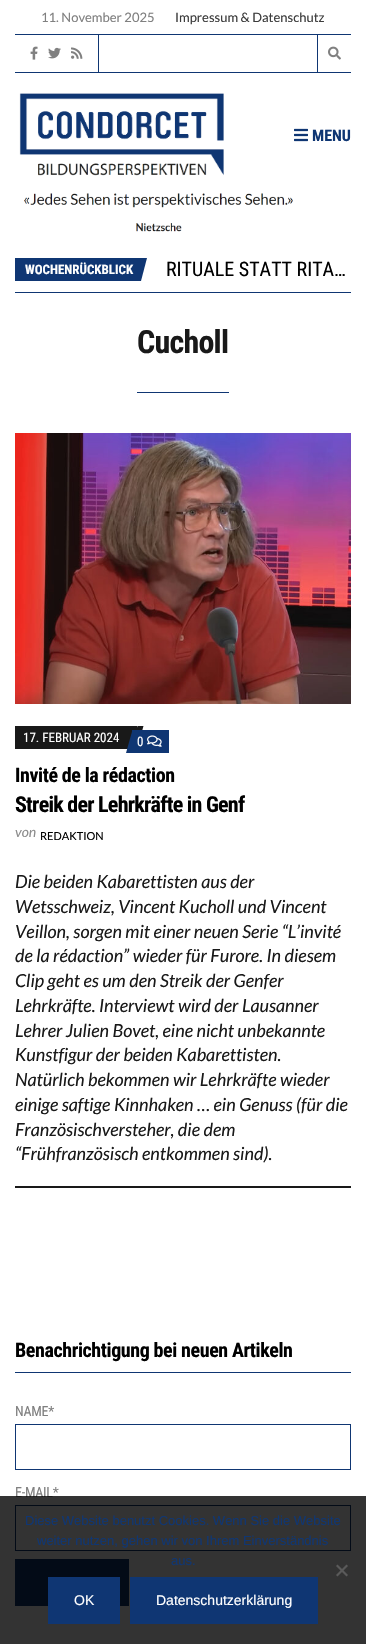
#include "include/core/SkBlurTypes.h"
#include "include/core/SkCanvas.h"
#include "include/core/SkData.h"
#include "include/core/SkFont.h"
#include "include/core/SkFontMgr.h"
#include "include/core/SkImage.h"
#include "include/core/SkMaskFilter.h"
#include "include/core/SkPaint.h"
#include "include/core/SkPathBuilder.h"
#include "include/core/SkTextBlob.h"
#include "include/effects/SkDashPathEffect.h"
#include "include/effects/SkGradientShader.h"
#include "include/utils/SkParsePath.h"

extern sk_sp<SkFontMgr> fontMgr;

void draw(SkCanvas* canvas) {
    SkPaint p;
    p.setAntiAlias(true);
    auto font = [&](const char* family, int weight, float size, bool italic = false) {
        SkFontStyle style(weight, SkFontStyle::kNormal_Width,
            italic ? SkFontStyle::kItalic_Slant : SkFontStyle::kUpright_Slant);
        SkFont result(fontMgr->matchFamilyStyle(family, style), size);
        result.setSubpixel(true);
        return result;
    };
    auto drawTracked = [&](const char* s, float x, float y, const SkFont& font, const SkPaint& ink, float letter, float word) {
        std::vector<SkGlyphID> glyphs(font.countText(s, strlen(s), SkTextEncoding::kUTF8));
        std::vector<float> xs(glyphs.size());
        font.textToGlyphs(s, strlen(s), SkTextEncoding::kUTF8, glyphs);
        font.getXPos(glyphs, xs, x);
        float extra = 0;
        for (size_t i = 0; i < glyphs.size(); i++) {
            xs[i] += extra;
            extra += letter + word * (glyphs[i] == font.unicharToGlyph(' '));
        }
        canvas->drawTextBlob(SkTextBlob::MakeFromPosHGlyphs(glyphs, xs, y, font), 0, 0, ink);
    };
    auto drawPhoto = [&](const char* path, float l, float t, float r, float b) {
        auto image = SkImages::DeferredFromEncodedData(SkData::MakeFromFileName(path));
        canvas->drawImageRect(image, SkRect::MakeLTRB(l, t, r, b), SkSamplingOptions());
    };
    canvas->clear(0xFFFFFFFF);
    p.setColor(0xFF0F3673);
    canvas->drawRect(SkRect::MakeLTRB(15, 72, 351, 73), p);
    canvas->drawRect(SkRect::MakeLTRB(15, 34, 351, 35), p);
    auto font1 = font("Lato", 400, 13);
    p.setColor(0xFF808080);
    canvas->drawString("11. November 2025", 41, 22, font1, p);
    p.setColor(0xFF3C3C3C);
    canvas->drawString("Impressum & Datenschutz", 175, 22, font1, p);
    p.setColor(0xFF0F3673);
    canvas->drawRect(SkRect::MakeLTRB(98, 35, 99, 72), p);
    drawPhoto("media/1.png", 30, 46, 38, 60);
    drawPhoto("media/2.png", 48, 47, 61, 59);
    drawPhoto("media/3.png", 71, 47, 83, 59);
    canvas->drawRect(SkRect::MakeLTRB(317, 35, 318, 72), p);
    drawPhoto("media/4.png", 328, 46, 341, 60);
    drawPhoto("media/5.png", 19, 93, 224, 176);
    drawPhoto("media/6.png", 294, 128, 308, 142);
    auto font2 = font("Roboto Condensed", 700, 16);
    canvas->drawString("MENU", 312, 141, font2, p);
    drawPhoto("media/7.png", 24, 193, 293, 232);
    canvas->drawRect(SkRect::MakeLTRB(15, 292, 351, 293), p);
    canvas->drawRect(SkRect::MakeLTRB(15, 258, 147, 281), p);
    auto font3 = font("Roboto Condensed", 700, 13);
    p.setColor(0xFFFFFFFF);
    canvas->drawString("WOCHENRÜCKBLICK", 25, 274, font3, p);
    canvas->drawPath(SkPathBuilder().moveTo(147, 258).lineTo(153, 258).lineTo(147, 281).lineTo(141, 281).close().detach(), p);
    auto font4 = font("Roboto Condensed", 400, 20);
    p.setColor(0xFF000000);
    canvas->drawString("RITUALE STATT RITA…", 166, 276, font4, p);
    p.setColor(0xFF0F3673);
    canvas->drawRect(SkRect::MakeLTRB(137, 392, 229, 393), p);
    auto font5 = font("Roboto Condensed", 700, 32);
    p.setColor(0xFF191919);
    drawTracked("Cucholl", 137, 353, font5, p, -0.75f, 0);
    canvas->drawRect(SkRect::MakeLTRB(15, 1186, 351, 1188), p);
    drawPhoto("media/8.png", 15, 433, 351, 704);
    canvas->drawRect(SkRect::MakeLTRB(15, 726, 137, 749), p);
    auto font6 = font("Roboto Condensed", 400, 13);
    p.setColor(0xFFFFFFFF);
    canvas->drawString("17. FEBRUAR 2024", 23, 742, font6, p);
    p.setColor(0xFF191919);
    canvas->drawPath(SkPathBuilder().moveTo(137.5f, 726).lineTo(143.5f, 726).lineTo(137, 749).lineTo(131, 749).close().detach(), p);
    p.setColor(0xFF0F3673);
    canvas->drawRect(SkRect::MakeLTRB(132, 730, 169, 753), p);
    p.setColor(0xFFFFFFFF);
    canvas->drawString("0", 137, 746, font6, p);
    p.setColor(0xFF0F3673);
    canvas->drawPath(SkPathBuilder().moveTo(132.5f, 730).lineTo(138.5f, 730).lineTo(132, 753).lineTo(126, 753).close().detach(), p);
    drawPhoto("media/9.png", 147, 735, 162, 747);
    auto font7 = font("Roboto Condensed", 700, 20);
    p.setColor(0xFF000000);
    drawTracked("Invité de la rédaction", 15, 782, font7, p, -0.4f, 0);
    auto font8 = font("Roboto Condensed", 700, 22);
    drawTracked("Streik der Lehrkräfte in Genf", 15, 812, font8, p, -0.75f, 0);
    auto font9 = font("Lato", 400, 14, true);
    p.setColor(0xFF8C8C8C);
    canvas->drawString("von", 15, 837, font9, p);
    auto font10 = font("Lato", 400, 11);
    p.setColor(0xFF000000);
    canvas->drawString("REDAKTION", 40, 840, font10, p);
    auto font11 = font("Lato", 400, 18, true);
    p.setColor(0xFF191919);
    {
        const struct { const char* s; float x, y; } items[] = {
            {"Die beiden Kabarettisten aus der", 15, 888},
            {"Wetsschweiz, Vincent Kucholl und Vincent", 15, 913},
            {"Veillon, sorgen mit einer neuen Serie “L’invité", 15, 938},
            {"de la rédaction” wieder für Furore. In diesem", 15, 962},
            {"Clip geht es um den Streik der Genfer", 15, 987},
            {"Lehrkräfte. Interviewt wird der Lausanner", 15, 1012},
            {"Lehrer Julien Bovet, eine nicht unbekannte", 15, 1037},
            {"Kunstfigur der beiden Kabarettisten.", 15, 1061},
            {"Natürlich bekommen wir Lehrkräfte wieder", 15, 1086},
            {"einige saftige Kinnhaken … ein Genuss (für die", 15, 1111},
            {"Französischversteher, die dem", 15, 1136},
            {"“Frühfranzösisch entkommen sind).", 15, 1160},
        };
        for (auto [s, x, y] : items) {
            canvas->drawString(s, x, y, font11, p);
        }
    }
    p.setColor(0xFF0F3673);
    canvas->drawRect(SkRect::MakeLTRB(15, 1372, 351, 1373), p);
    p.setColor(0xFF000000);
    drawTracked("Benachrichtigung bei neuen Artikeln", 15, 1357, font7, p, -0.4f, 0);
    auto font12 = font("Roboto Condensed", 400, 14);
    p.setColor(0xFF808080);
    drawTracked("NAME*", 15, 1416, font12, p, -0.25f, 0);
    p.setStyle(SkPaint::kStroke_Style);
    p.setStrokeWidth(1);
    p.setColor(0xFF0F3673);
    canvas->drawRect(SkRect::MakeLTRB(15.5f, 1424.5f, 350.5f, 1469.5f), p);
    p.setStyle(SkPaint::kFill_Style);
    p.setColor(0xFF808080);
    drawTracked("E-MAIL*", 15, 1497, font12, p, -0.25f, 0);
    p.setStyle(SkPaint::kStroke_Style);
    p.setColor(0xFF0F3673);
    canvas->drawRect(SkRect::MakeLTRB(15.5f, 1505.5f, 350.5f, 1550.5f), p);
    p.setStyle(SkPaint::kFill_Style);
    canvas->drawRect(SkRect::MakeLTRB(15, 1559, 129, 1606), p);
    p.setColor(0xCC000000);
    canvas->drawRect(SkRect::MakeLTRB(0, 1496, 366, 1644), p);
    auto font13 = font("Liberation Sans", 400, 13);
    p.setColor(0xFF0F3673);
    {
        const struct { const char* s; float x, y; } items[] = {
            {"Diese Website benutzt Cookies. Wenn Sie die Website", 25, 1525},
            {"weiter nutzen, gehen wir von Ihrem Einverständnis", 37, 1545},
            {"aus.", 171, 1565},
        };
        for (auto [s, x, y] : items) {
            canvas->drawString(s, x, y, font13, p);
        }
    }
    p.setColor(0xFF5A5A5A);
    canvas->drawPath(SkPathBuilder().moveTo(346.5f, 1564.5f).lineTo(348, 1566).lineTo(337.5f, 1576.5f).lineTo(336, 1575).close().detach(), p);
    canvas->drawPath(SkPathBuilder().moveTo(336, 1566).lineTo(337.5f, 1564.5f).lineTo(348, 1575).lineTo(346.5f, 1576.5f).close().detach(), p);
    p.setColor(0xFF0F3673);
    canvas->drawRect(SkRect::MakeLTRB(48, 1577, 120, 1624), p);
    auto font14 = font("Liberation Sans", 400, 14);
    p.setColor(0xFFFFFFFF);
    canvas->drawString("OK", 74, 1605, font14, p);
    p.setColor(0xFF0F3673);
    canvas->drawRect(SkRect::MakeLTRB(130, 1577, 318, 1624), p);
    p.setColor(0xFFFFFFFF);
    canvas->drawString("Datenschutzerklärung", 156, 1605, font14, p);
}
